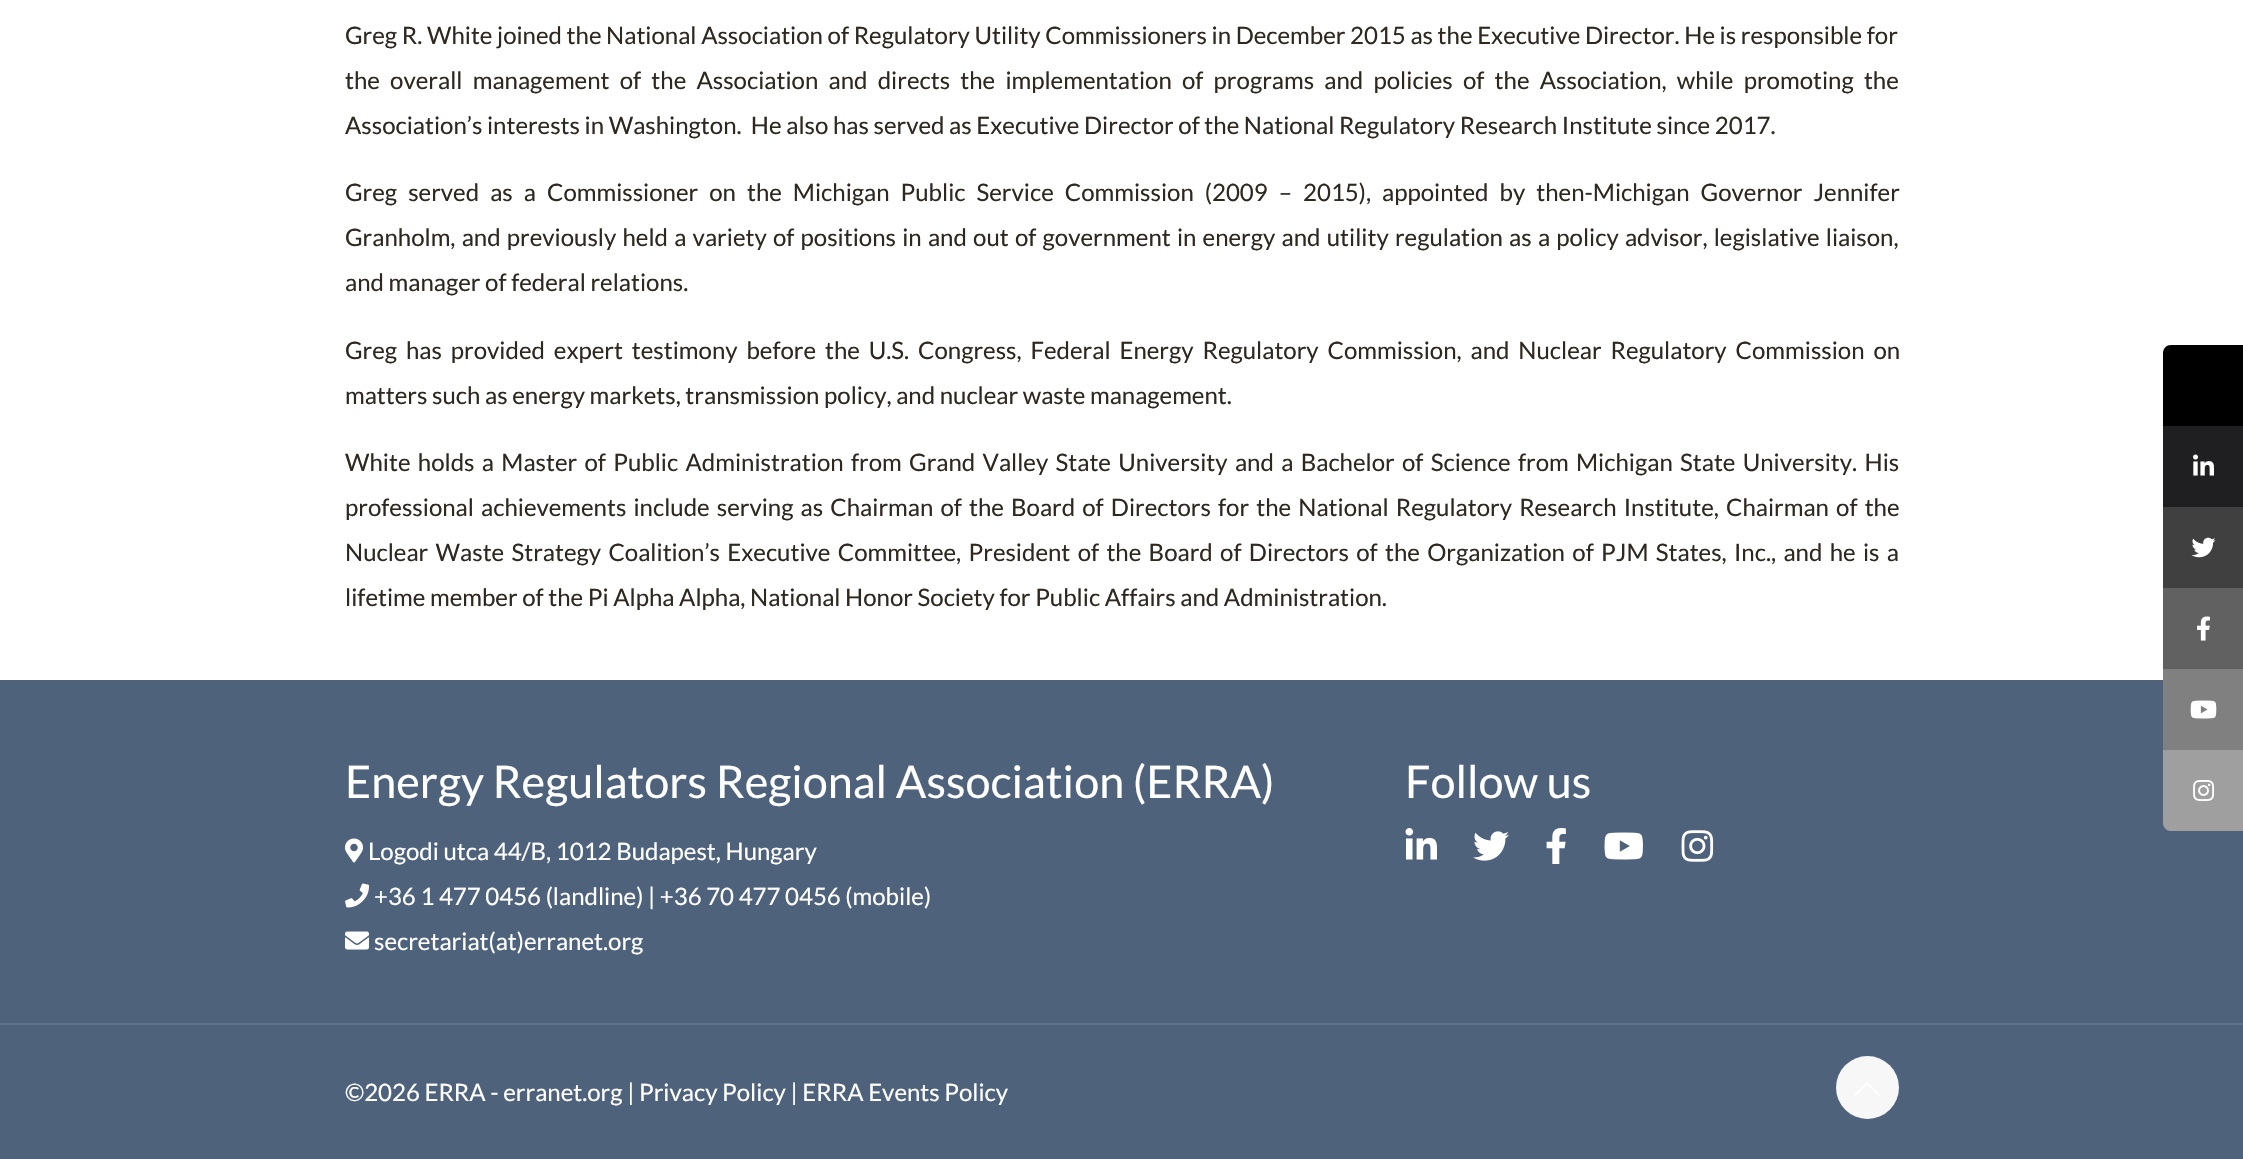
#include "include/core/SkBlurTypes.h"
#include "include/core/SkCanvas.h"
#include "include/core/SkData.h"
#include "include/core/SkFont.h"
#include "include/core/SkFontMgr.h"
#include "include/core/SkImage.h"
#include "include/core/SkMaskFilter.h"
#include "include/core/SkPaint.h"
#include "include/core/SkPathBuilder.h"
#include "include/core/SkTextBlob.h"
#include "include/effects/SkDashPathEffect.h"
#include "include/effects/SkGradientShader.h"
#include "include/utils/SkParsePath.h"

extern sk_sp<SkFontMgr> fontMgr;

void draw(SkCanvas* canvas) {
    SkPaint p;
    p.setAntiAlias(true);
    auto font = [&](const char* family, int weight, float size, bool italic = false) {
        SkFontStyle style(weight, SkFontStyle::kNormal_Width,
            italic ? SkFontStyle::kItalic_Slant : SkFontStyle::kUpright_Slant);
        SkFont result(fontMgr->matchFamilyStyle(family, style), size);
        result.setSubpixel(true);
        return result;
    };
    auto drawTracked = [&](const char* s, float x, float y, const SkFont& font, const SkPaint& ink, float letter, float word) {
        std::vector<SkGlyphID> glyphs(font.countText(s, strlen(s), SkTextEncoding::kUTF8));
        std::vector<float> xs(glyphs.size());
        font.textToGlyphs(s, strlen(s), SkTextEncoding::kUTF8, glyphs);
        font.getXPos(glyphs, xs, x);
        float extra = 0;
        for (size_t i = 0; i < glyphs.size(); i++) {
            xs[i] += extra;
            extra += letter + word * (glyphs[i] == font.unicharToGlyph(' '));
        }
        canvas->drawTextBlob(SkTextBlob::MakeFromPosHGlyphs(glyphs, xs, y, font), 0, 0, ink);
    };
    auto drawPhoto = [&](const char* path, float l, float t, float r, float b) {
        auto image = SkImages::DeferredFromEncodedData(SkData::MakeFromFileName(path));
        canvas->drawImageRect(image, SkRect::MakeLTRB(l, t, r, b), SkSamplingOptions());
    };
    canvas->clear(0xFFFFFFFF);
    auto font1 = font("Lato", 400, 24);
    p.setColor(0xFF2E2821);
    canvas->drawString("Greg R. White joined the National Association of Regulatory Utility Commissioners in December 2015 as the Executive Director. He is responsible for", 345, 44, font1, p);
    drawTracked("the overall management of the Association and directs the implementation of programs and policies of the Association, while promoting the", 345, 89, font1, p, 0, 5.6f);
    canvas->drawString("Association’s interests in Washington.  He also has served as Executive Director of the National Regulatory Research Institute since 2017.", 345, 134, font1, p);
    drawTracked("Greg served as a Commissioner on the Michigan Public Service Commission (2009 – 2015), appointed by then-Michigan Governor Jennifer", 345, 201, font1, p, 0, 6.4f);
    drawTracked("Granholm, and previously held a variety of positions in and out of government in energy and utility regulation as a policy advisor, legislative liaison,", 345, 246, font1, p, 0, 1.6f);
    canvas->drawString("and manager of federal relations.", 345, 291, font1, p);
    drawTracked("Greg has provided expert testimony before the U.S. Congress, Federal Energy Regulatory Commission, and Nuclear Regulatory Commission on", 345, 359, font1, p, 0, 4.25f);
    canvas->drawString("matters such as energy markets, transmission policy, and nuclear waste management.", 345, 404, font1, p);
    drawTracked("White holds a Master of Public Administration from Grand Valley State University and a Bachelor of Science from Michigan State University. His", 345, 471, font1, p, 0, 2.7f);
    drawTracked("professional achievements include serving as Chairman of the Board of Directors for the National Regulatory Research Institute, Chairman of the", 345, 516, font1, p, 0, 2.5f);
    drawTracked("Nuclear Waste Strategy Coalition’s Executive Committee, President of the Board of Directors of the Organization of PJM States, Inc., and he is a", 345, 561, font1, p, 0, 2.7f);
    canvas->drawString("lifetime member of the Pi Alpha Alpha, National Honor Society for Public Affairs and Administration.", 345, 606, font1, p);
    p.setColor(0xFF4E627C);
    canvas->drawRect(SkRect::MakeLTRB(0, 680, 2243, 1159), p);
    auto font2 = font("Lato", 400, 45);
    p.setColor(0xFFFFFFFF);
    canvas->drawString("Energy Regulators Regional Association (ERRA)", 345, 798, font2, p);
    drawPhoto("media/1.png", 345, 838, 363, 863);
    canvas->drawString("Logodi utca 44/B, 1012 Budapest, Hungary", 368, 860, font1, p);
    drawPhoto("media/2.png", 345, 883, 369, 908);
    canvas->drawString("+36 1 477 0456 (landline) | +36 70 477 0456 (mobile)", 374, 905, font1, p);
    drawPhoto("media/3.png", 345, 931, 369, 950);
    canvas->drawString("secretariat(at)erranet.org", 374, 950, font1, p);
    canvas->drawString("Follow us", 1405, 798, font2, p);
    drawPhoto("media/4.png", 1405, 828, 1437, 860);
    drawPhoto("media/5.png", 1473, 831, 1509, 861);
    drawPhoto("media/6.png", 1546, 828, 1566, 864);
    drawPhoto("media/7.png", 1604, 832, 1643, 860);
    drawPhoto("media/8.png", 1681, 830, 1714, 862);
    p.setColor(0xFF607289);
    canvas->drawRect(SkRect::MakeLTRB(0, 1023, 2243, 1025), p);
    p.setColor(0xFFFFFFFF);
    canvas->drawString("©2026 ERRA - erranet.org | Privacy Policy | ERRA Events Policy", 345, 1101, font1, p);
    p.setColor(0xFFF7F7F7);
    canvas->drawCircle(1867.5f, 1087.5f, 31.5f, p);
    drawPhoto("media/9.png", 1854, 1082, 1880, 1096);
    p.setColor(0xFF000000);
    canvas->drawPath(SkPathBuilder().moveTo(2171, 345).lineTo(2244, 345).lineTo(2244, 426).lineTo(2163, 426).lineTo(2163, 353).cubicTo(2163, 348.5f, 2166.5f, 345, 2171, 345).close().detach(), p);
    p.setColor(0xFF1F1F21);
    canvas->drawRect(SkRect::MakeLTRB(2163, 426, 2243, 507), p);
    drawPhoto("media/10.png", 2193, 454, 2214, 476);
    p.setColor(0xFF404040);
    canvas->drawRect(SkRect::MakeLTRB(2163, 507, 2243, 588), p);
    drawPhoto("media/11.png", 2191, 537, 2216, 558);
    p.setColor(0xFF616161);
    canvas->drawRect(SkRect::MakeLTRB(2163, 588, 2243, 669), p);
    drawPhoto("media/12.png", 2197, 616, 2210, 641);
    p.setColor(0xFF808080);
    canvas->drawRect(SkRect::MakeLTRB(2163, 669, 2243, 750), p);
    drawPhoto("media/13.png", 2190, 700, 2217, 719);
    p.setColor(0xFF9F9F9F);
    canvas->drawPath(SkPathBuilder().moveTo(2163, 750).lineTo(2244, 750).lineTo(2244, 831).lineTo(2171, 831).cubicTo(2166.5f, 831, 2163, 827.5f, 2163, 823).close().detach(), p);
    drawPhoto("media/14.png", 2193, 780, 2215, 801);
}
